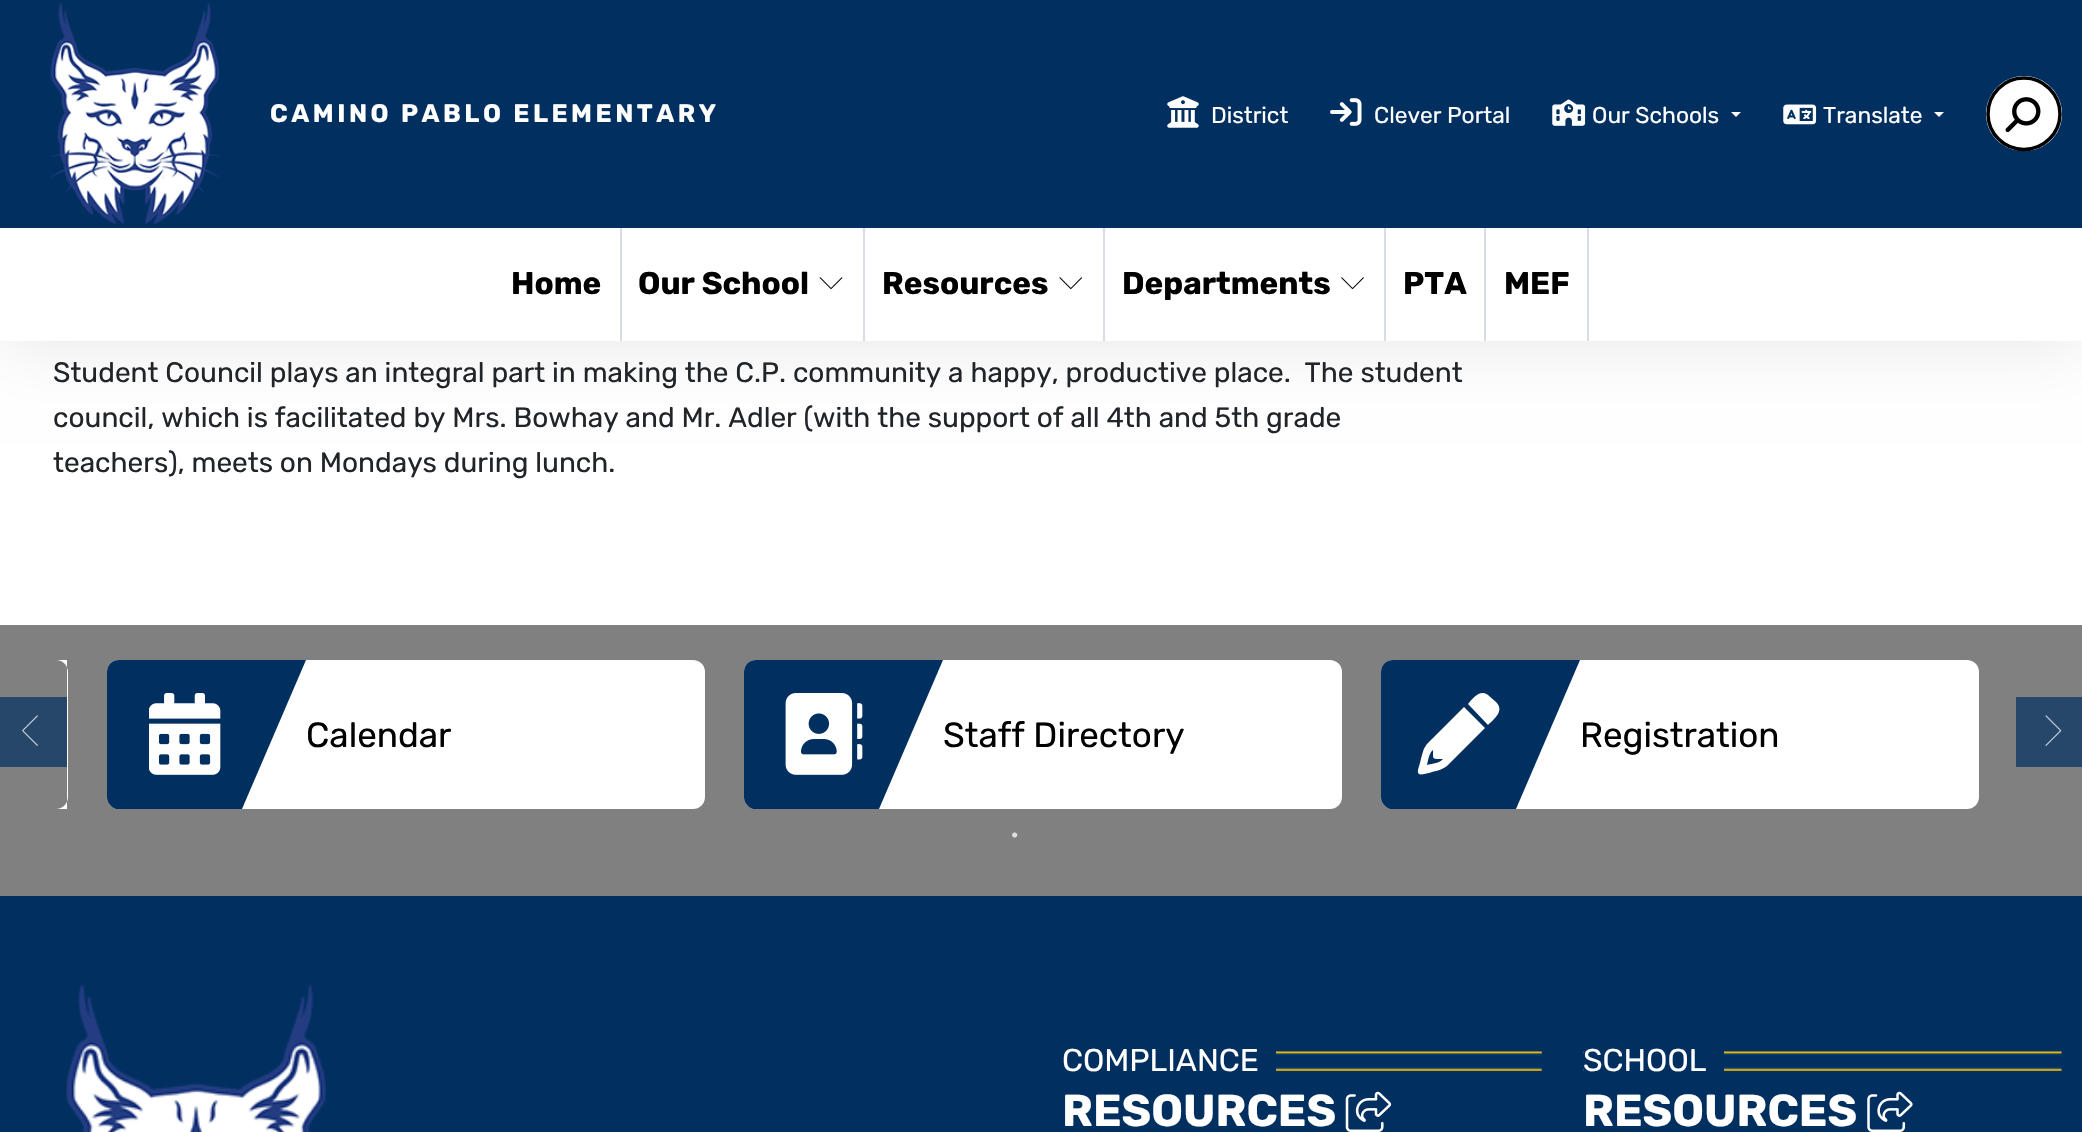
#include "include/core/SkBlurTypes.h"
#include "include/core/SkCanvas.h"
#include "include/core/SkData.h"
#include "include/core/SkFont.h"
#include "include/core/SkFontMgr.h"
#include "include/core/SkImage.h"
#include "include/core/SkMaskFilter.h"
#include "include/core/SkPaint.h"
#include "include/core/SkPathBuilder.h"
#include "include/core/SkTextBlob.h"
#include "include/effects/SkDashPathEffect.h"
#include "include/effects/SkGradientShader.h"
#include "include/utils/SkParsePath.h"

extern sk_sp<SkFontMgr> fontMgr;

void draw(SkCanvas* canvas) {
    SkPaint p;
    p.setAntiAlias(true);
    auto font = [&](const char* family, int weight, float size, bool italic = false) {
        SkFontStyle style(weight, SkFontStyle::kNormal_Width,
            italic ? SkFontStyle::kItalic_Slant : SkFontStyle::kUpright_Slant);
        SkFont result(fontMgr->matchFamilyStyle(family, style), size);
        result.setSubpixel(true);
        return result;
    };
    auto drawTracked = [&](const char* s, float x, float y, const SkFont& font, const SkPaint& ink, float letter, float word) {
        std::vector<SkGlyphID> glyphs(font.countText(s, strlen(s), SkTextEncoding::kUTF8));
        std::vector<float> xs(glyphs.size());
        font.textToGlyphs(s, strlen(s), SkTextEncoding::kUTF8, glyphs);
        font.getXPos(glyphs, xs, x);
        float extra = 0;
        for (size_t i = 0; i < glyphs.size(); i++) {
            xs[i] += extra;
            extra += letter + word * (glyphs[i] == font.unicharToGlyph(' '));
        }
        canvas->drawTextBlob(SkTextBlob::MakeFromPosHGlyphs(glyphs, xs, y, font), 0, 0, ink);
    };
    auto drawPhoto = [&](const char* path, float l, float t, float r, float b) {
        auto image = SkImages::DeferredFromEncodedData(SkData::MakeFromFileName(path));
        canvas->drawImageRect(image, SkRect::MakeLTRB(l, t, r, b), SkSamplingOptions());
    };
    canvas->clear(0xFFFFFFFF);
    p.setColor(0x1A000000);
    p.setMaskFilter(SkMaskFilter::MakeBlur(kNormal_SkBlurStyle, 35));
    canvas->drawRect(SkRect::MakeLTRB(0, 0, 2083, 341), p);
    p.setMaskFilter(nullptr);
    p.setColor(0xFFFFFFFF);
    canvas->drawRect(SkRect::MakeLTRB(0, 228, 2082, 341), p);
    p.setColor(0xFF002F60);
    canvas->drawRect(SkRect::MakeLTRB(0, 0, 2082, 228), p);
    drawPhoto("media/1.png", 49, 3, 220, 224);
    auto font1 = font("Rubik", 700, 25.25f);
    p.setColor(0xFFFFFFFF);
    drawTracked("CAMINO PABLO ELEMENTARY", 270, 122, font1, p, 3.5f, 0);
    drawPhoto("media/2.png", 1167, 96, 1199, 128);
    auto font2 = font("Rubik", 400, 22.75f);
    canvas->drawString("District", 1211, 123, font2, p);
    drawPhoto("media/3.png", 1330, 98, 1362, 126);
    canvas->drawString("Clever Portal", 1374, 123, font2, p);
    drawPhoto("media/4.png", 1552, 99, 1586, 126);
    canvas->drawString("Our Schools", 1592, 123, font2, p);
    canvas->drawPath(SkPathBuilder().moveTo(1731, 112).lineTo(1741, 112).lineTo(1736, 117).close().detach(), p);
    drawPhoto("media/5.png", 1783, 104, 1817, 125);
    canvas->drawString("Translate", 1823, 123, font2, p);
    canvas->drawPath(SkPathBuilder().moveTo(1934, 112).lineTo(1944, 112).lineTo(1939, 117).close().detach(), p);
    canvas->drawPath(SkPathBuilder().moveTo(2024, 76).cubicTo(2003, 76, 1986, 93, 1986, 114).cubicTo(1986, 135, 2003, 151, 2024, 151).cubicTo(2045, 151, 2062, 135, 2062, 114).cubicTo(2062, 93, 2045, 76, 2024, 76).close().detach(), p);
    p.setStyle(SkPaint::kStroke_Style);
    p.setStrokeWidth(3.5f);
    p.setColor(0xFF000000);
    canvas->drawPath(SkPathBuilder().moveTo(2024, 78).cubicTo(2004, 78, 1988, 94, 1988, 114).cubicTo(1988, 133.5f, 2004, 149.5f, 2024, 149.5f).cubicTo(2043.5f, 149.5f, 2060, 133.5f, 2060, 114).cubicTo(2060, 94, 2043.5f, 78, 2024, 78).close().detach(), p);
    drawPhoto("media/6.png", 2005, 97, 2041, 133);
    p.setStyle(SkPaint::kFill_Style);
    p.setColor(0xFFD8DCE5);
    canvas->drawRect(SkRect::MakeLTRB(620, 228, 622, 341), p);
    auto font3 = font("Rubik", 700, 31.5f);
    p.setColor(0xFF000000);
    canvas->drawString("Home", 511, 294, font3, p);
    p.setColor(0xFFD8DCE5);
    canvas->drawRect(SkRect::MakeLTRB(863, 228, 865, 341), p);
    p.setColor(0xFF000000);
    canvas->drawString("Our School", 638, 294, font3, p);
    drawPhoto("media/7.png", 819, 277, 843, 289);
    p.setColor(0xFFD8DCE5);
    canvas->drawRect(SkRect::MakeLTRB(1103, 228, 1105, 341), p);
    p.setColor(0xFF000000);
    canvas->drawString("Resources", 882, 294, font3, p);
    drawPhoto("media/8.png", 1059, 277, 1083, 289);
    p.setColor(0xFFD8DCE5);
    canvas->drawRect(SkRect::MakeLTRB(1384, 228, 1386, 341), p);
    p.setColor(0xFF000000);
    canvas->drawString("Departments", 1122, 294, font3, p);
    drawPhoto("media/9.png", 1341, 277, 1364, 289);
    p.setColor(0xFFD8DCE5);
    canvas->drawRect(SkRect::MakeLTRB(1484, 228, 1486, 341), p);
    p.setColor(0xFF000000);
    canvas->drawString("PTA", 1403, 294, font3, p);
    p.setColor(0xFFD8DCE5);
    canvas->drawRect(SkRect::MakeLTRB(1587, 228, 1589, 341), p);
    p.setColor(0xFF000000);
    canvas->drawString("MEF", 1504, 294, font3, p);
    auto font4 = font("Rubik", 400, 28);
    p.setColor(0xFF212529);
    {
        const struct { const char* s; float x, y; } items[] = {
            {"Student Council plays an integral part in making the C.P. community a happy, productive place.  The student", 53, 382},
            {"council, which is facilitated by Mrs. Bowhay and Mr. Adler (with the support of all 4th and 5th grade", 53, 427},
            {"teachers), meets on Mondays during lunch.", 53, 472},
        };
        for (auto [s, x, y] : items) {
            canvas->drawString(s, x, y, font4, p);
        }
    }
    p.setColor(0xFF808080);
    canvas->drawRect(SkRect::MakeLTRB(0, 625, 2082, 896), p);
    p.setColor(0xFF26476A);
    canvas->drawRect(SkRect::MakeLTRB(0, 697, 67, 767), p);
    drawPhoto("media/10.png", 22, 715, 38, 746);
    p.setColor(0xFFFFFFFF);
    canvas->drawPath(SkPathBuilder().moveTo(67, 660).lineTo(56, 660).cubicTo(62.5f, 660, 68, 665.5f, 68, 672).lineTo(68, 797).cubicTo(68, 803.5f, 62.5f, 809, 56, 809).lineTo(67, 809).close().detach(), p);
    canvas->drawRoundRect(SkRect::MakeLTRB(107, 660, 705, 809), 12, 12, p);
    p.setColor(0xFF002F60);
    canvas->drawPath(SkPathBuilder().moveTo(119, 660).lineTo(306, 660).lineTo(242, 809).lineTo(116, 809).cubicTo(111, 807, 107, 803, 107, 797).lineTo(107, 672).cubicTo(107, 665, 112, 660, 119, 660).close().detach(), p);
    drawPhoto("media/11.png", 149, 693, 221, 775);
    auto font5 = font("Rubik", 400, 35);
    p.setColor(0xFF000000);
    canvas->drawString("Calendar", 306, 747, font5, p);
    p.setColor(0xFFFFFFFF);
    canvas->drawRoundRect(SkRect::MakeLTRB(744, 660, 1342, 809), 12, 12, p);
    p.setColor(0xFF002F60);
    canvas->drawPath(SkPathBuilder().moveTo(756, 660).lineTo(943, 660).lineTo(879, 809).lineTo(753, 809).cubicTo(748, 807, 744, 803, 744, 797).lineTo(744, 672).cubicTo(744, 665, 749, 660, 756, 660).close().detach(), p);
    drawPhoto("media/12.png", 785, 693, 863, 775);
    p.setColor(0xFF000000);
    canvas->drawString("Staff Directory", 943, 747, font5, p);
    p.setColor(0xFFFFFFFF);
    canvas->drawRoundRect(SkRect::MakeLTRB(1381, 660, 1979, 809), 12, 12, p);
    p.setColor(0xFF002F60);
    canvas->drawPath(SkPathBuilder().moveTo(1393, 660).lineTo(1580, 660).lineTo(1516, 809).lineTo(1390, 809).cubicTo(1385, 807, 1381, 803, 1381, 797).lineTo(1381, 672).cubicTo(1381, 665, 1386, 660, 1393, 660).close().detach(), p);
    p.setColor(0xFFFFFFFF);
    canvas->drawPath(SkPathBuilder().moveTo(1485, 728).lineTo(1448, 765).lineTo(1442, 760).lineTo(1443, 759).cubicTo(1432, 759, 1433, 760, 1433, 750).cubicTo(1429, 753, 1428, 761, 1427, 765).cubicTo(1431, 764, 1439, 763, 1442, 760).lineTo(1448, 765).cubicTo(1443, 770, 1435, 771, 1429, 773).cubicTo(1417, 776, 1416, 775, 1420, 763).cubicTo(1425, 744, 1423, 748, 1439, 732).lineTo(1464, 707).close().moveTo(1496, 702).cubicTo(1505, 711, 1494, 719, 1488, 725).lineTo(1468, 704).cubicTo(1473, 698, 1480, 689, 1488, 695).close().detach(), p);
    p.setColor(0xFF000000);
    canvas->drawString("Registration", 1580, 747, font5, p);
    p.setColor(0xFF26476A);
    canvas->drawRect(SkRect::MakeLTRB(2016, 697, 2082, 767), p);
    drawPhoto("media/13.png", 2045, 715, 2062, 746);
    auto font6 = font("Liberation Serif", 400, 21);
    p.setColor(0xFFDFDFDF);
    canvas->drawString("•", 1011, 842, font6, p);
    p.setColor(0xFF002F60);
    canvas->drawRect(SkRect::MakeLTRB(0, 896, 2082, 1132), p);
    drawPhoto("media/14.png", 66, 985, 326, 1132);
    drawPhoto("media/15.png", 1276, 1051, 1542, 1071);
    auto font7 = font("Rubik", 400, 31.5f);
    p.setColor(0xFFFFFFFF);
    canvas->drawString("COMPLIANCE", 1062, 1071, font7, p);
    auto font8 = font("Rubik", 700, 44.75f);
    canvas->drawString("RESOURCES", 1062, 1126, font8, p);
    drawPhoto("media/16.png", 1345, 1091, 1392, 1132);
    drawPhoto("media/17.png", 1583, 1051, 2062, 1071);
    p.setColor(0xFF002F60);
    canvas->drawRect(SkRect::MakeLTRB(1584, 1051, 1724, 1071), p);
    p.setColor(0xFFFFFFFF);
    canvas->drawString("SCHOOL", 1583, 1071, font7, p);
    canvas->drawString("RESOURCES", 1583, 1126, font8, p);
    drawPhoto("media/18.png", 1867, 1091, 1913, 1132);
}
